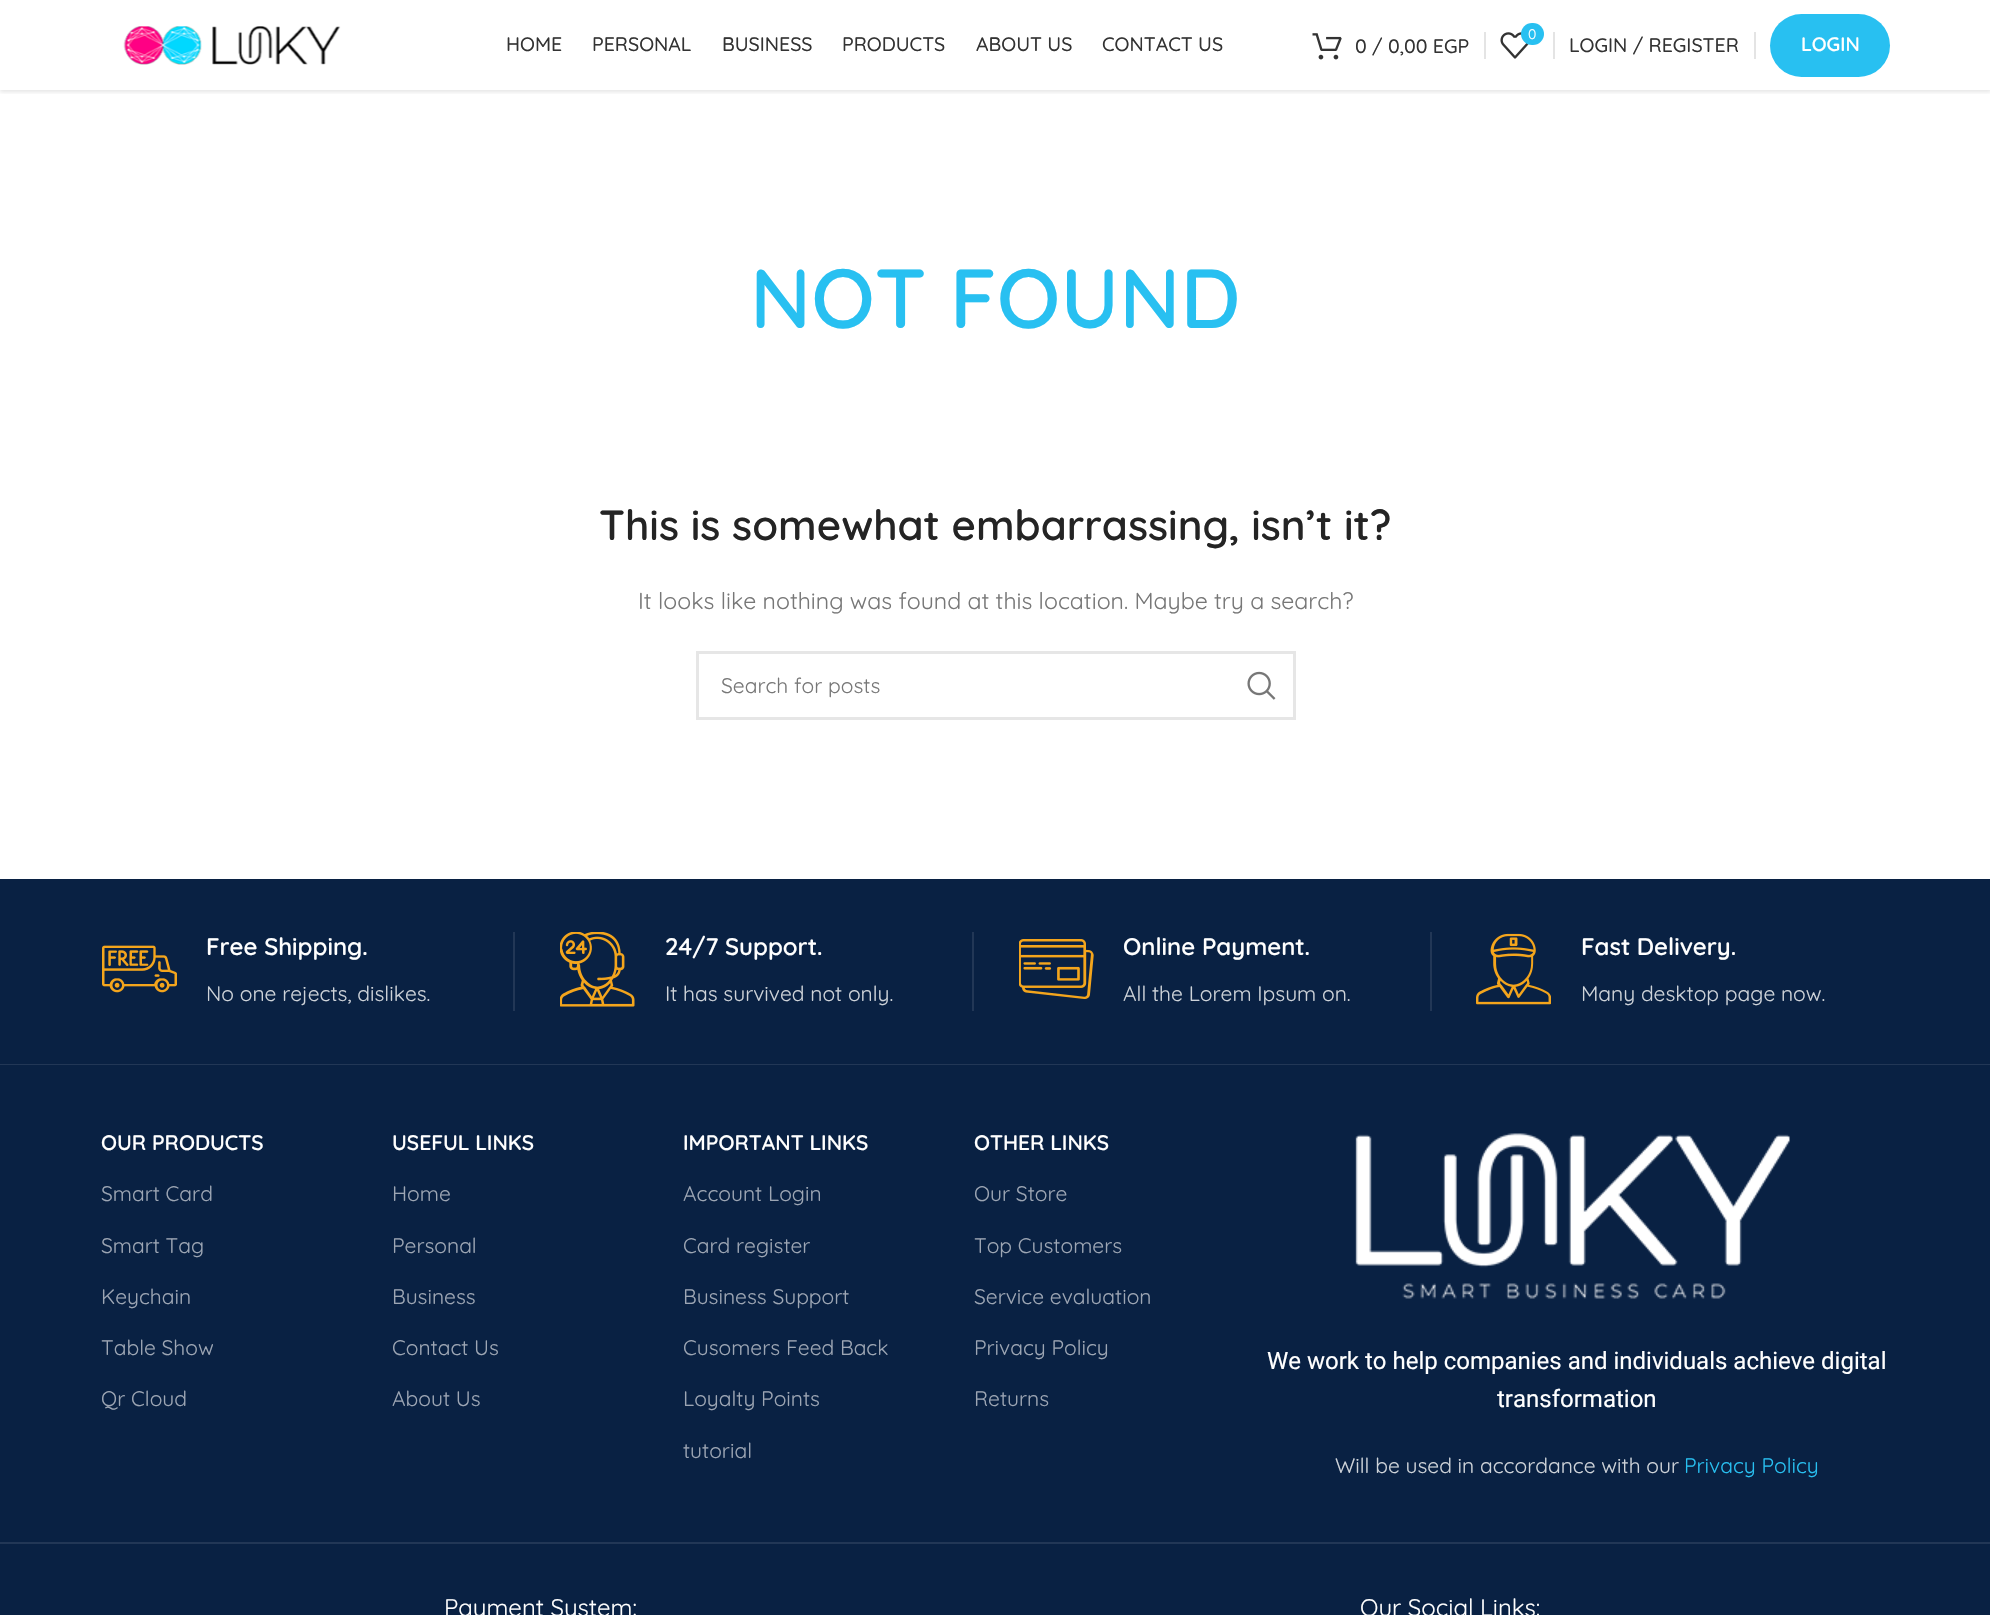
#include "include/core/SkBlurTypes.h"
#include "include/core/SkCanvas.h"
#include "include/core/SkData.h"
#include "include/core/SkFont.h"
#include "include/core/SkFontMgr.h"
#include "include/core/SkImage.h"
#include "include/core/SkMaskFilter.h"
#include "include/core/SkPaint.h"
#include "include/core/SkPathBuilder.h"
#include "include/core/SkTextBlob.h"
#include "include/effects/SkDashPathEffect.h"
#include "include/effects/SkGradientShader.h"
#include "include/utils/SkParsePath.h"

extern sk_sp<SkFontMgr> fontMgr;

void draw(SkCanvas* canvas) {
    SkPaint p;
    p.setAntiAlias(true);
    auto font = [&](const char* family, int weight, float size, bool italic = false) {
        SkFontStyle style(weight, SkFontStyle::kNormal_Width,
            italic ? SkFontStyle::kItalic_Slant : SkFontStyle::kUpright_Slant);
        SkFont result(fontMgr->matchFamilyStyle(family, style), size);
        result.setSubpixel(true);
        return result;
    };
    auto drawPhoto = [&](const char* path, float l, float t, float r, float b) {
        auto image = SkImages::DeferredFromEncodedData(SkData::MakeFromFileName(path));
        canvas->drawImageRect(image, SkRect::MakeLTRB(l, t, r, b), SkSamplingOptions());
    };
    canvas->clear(0xFFFFFFFF);
    canvas->save();
    canvas->clipRect(SkRect::MakeLTRB(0, 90, 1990, 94));
    p.setColor(0x1A000000);
    p.setMaskFilter(SkMaskFilter::MakeBlur(kNormal_SkBlurStyle, 2));
    canvas->drawRect(SkRect::MakeLTRB(0, 2, 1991, 92), p);
    p.setMaskFilter(nullptr);
    canvas->restore();
    drawPhoto("media/1.png", 123, 26, 341, 65);
    auto font1 = font("Quicksand", 500, 19.5f);
    p.setColor(0xFF333333);
    {
        const struct { const char* s; float x, y; } items[] = {
            {"HOME", 506, 51},
            {"PERSONAL", 592, 51},
            {"BUSINESS", 722, 51},
            {"PRODUCTS", 842, 51},
            {"ABOUT US", 976, 51},
            {"CONTACT US", 1102, 51},
        };
        for (auto [s, x, y] : items) {
            canvas->drawString(s, x, y, font1, p);
        }
    }
    drawPhoto("media/2.png", 1312, 33, 1342, 60);
    canvas->drawString("0 / 0,00 EGP", 1355, 53, font1, p);
    p.setColor(0xFFE4E4E4);
    canvas->drawRect(SkRect::MakeLTRB(1484, 32, 1486, 59), p);
    drawPhoto("media/3.png", 1500, 32, 1529, 59);
    p.setColor(0xFF28C0F1);
    canvas->drawRoundRect(SkRect::MakeLTRB(1521, 23, 1544, 45), 11, 11, p);
    auto font2 = font("Quicksand", 400, 14);
    p.setColor(0xFFFFFFFF);
    canvas->drawString("0", 1528, 39, font2, p);
    p.setColor(0xFFE4E4E4);
    canvas->drawRect(SkRect::MakeLTRB(1553, 32, 1555, 59), p);
    p.setColor(0xFF333333);
    canvas->drawString("LOGIN / REGISTER", 1569, 52, font1, p);
    p.setColor(0xFFE4E4E4);
    canvas->drawRect(SkRect::MakeLTRB(1754, 32, 1756, 59), p);
    p.setColor(0xFF28C0F1);
    canvas->drawRoundRect(SkRect::MakeLTRB(1770, 14, 1890, 77), 31.5f, 31.5f, p);
    auto font3 = font("Quicksand", 600, 19.5f);
    p.setColor(0xFFFFFFFF);
    canvas->drawString("LOGIN", 1801, 51, font3, p);
    auto font4 = font("Quicksand", 600, 83.5f);
    p.setColor(0xFF28C0F1);
    canvas->drawString("NOT FOUND", 750, 328, font4, p);
    auto font5 = font("Quicksand", 600, 42);
    p.setColor(0xFF242424);
    canvas->drawString("This is somewhat embarrassing, isn’t it?", 599, 540, font5, p);
    auto font6 = font("Quicksand", 400, 23.1f);
    p.setColor(0xFF777777);
    canvas->drawString("It looks like nothing was found at this location. Maybe try a search?", 638, 609, font6, p);
    p.setStyle(SkPaint::kStroke_Style);
    p.setStrokeWidth(3);
    p.setColor(0xFFE6E6E6);
    canvas->drawRect(SkRect::MakeLTRB(697.5f, 652.5f, 1294.5f, 718.5f), p);
    auto font7 = font("Quicksand", 400, 21);
    p.setStyle(SkPaint::kFill_Style);
    p.setColor(0xFF777777);
    canvas->drawString("Search for posts", 721, 693, font7, p);
    drawPhoto("media/4.png", 1247, 671, 1276, 700);
    {
        const struct { float l, t, r, b; SkColor color; } items[] = {
            {0, 879, 1990, 1064, 0xFF092143},
            {0, 1064, 1990, 1065, 0xFF223756},
            {513, 932, 515, 1011, 0xFF223756},
        };
        for (auto [l, t, r, b, color] : items) {
            p.setColor(color);
            canvas->drawRect(SkRect::MakeLTRB(l, t, r, b), p);
        }
    }
    drawPhoto("media/5.png", 102, 945, 177, 993);
    auto font8 = font("Quicksand", 600, 24);
    p.setColor(0xFFFFFFFF);
    canvas->drawString("Free Shipping.", 206, 955, font8, p);
    p.setColor(0xFFCED3D9);
    canvas->drawString("No one rejects, dislikes.", 206, 1001, font7, p);
    p.setColor(0xFF223756);
    canvas->drawRect(SkRect::MakeLTRB(972, 932, 974, 1011), p);
    drawPhoto("media/6.png", 560, 932, 635, 1007);
    p.setColor(0xFFFFFFFF);
    canvas->drawString("24/7 Support.", 665, 955, font8, p);
    p.setColor(0xFFCED3D9);
    canvas->drawString("It has survived not only.", 665, 1001, font7, p);
    p.setColor(0xFF223756);
    canvas->drawRect(SkRect::MakeLTRB(1430, 932, 1432, 1011), p);
    drawPhoto("media/7.png", 1019, 939, 1094, 999);
    p.setColor(0xFFFFFFFF);
    canvas->drawString("Online Payment.", 1123, 955, font8, p);
    p.setColor(0xFFCED3D9);
    canvas->drawString("All the Lorem Ipsum on.", 1123, 1001, font7, p);
    drawPhoto("media/8.png", 1476, 933, 1551, 1005);
    p.setColor(0xFFFFFFFF);
    canvas->drawString("Fast Delivery.", 1581, 955, font8, p);
    p.setColor(0xFFCED3D9);
    canvas->drawString("Many desktop page now.", 1581, 1001, font7, p);
    p.setColor(0xFF092143);
    canvas->drawRect(SkRect::MakeLTRB(0, 1065, 1990, 1542), p);
    p.setColor(0xFF223756);
    canvas->drawRect(SkRect::MakeLTRB(0, 1542, 1990, 1544), p);
    auto font9 = font("Quicksand", 600, 21);
    p.setColor(0xFFFFFFFF);
    canvas->drawString("OUR PRODUCTS", 101, 1150, font9, p);
    p.setColor(0xFF9DA6B4);
    {
        const struct { const char* s; float x, y; } items[] = {
            {"Smart Card", 101, 1201},
            {"Smart Tag", 101, 1253},
            {"Keychain", 101, 1304},
            {"Table Show", 101, 1355},
            {"Qr Cloud", 101, 1406},
        };
        for (auto [s, x, y] : items) {
            canvas->drawString(s, x, y, font7, p);
        }
    }
    p.setColor(0xFFFFFFFF);
    canvas->drawString("USEFUL LINKS", 392, 1150, font9, p);
    p.setColor(0xFF9DA6B4);
    {
        const struct { const char* s; float x, y; } items[] = {
            {"Home", 392, 1201},
            {"Personal", 392, 1253},
            {"Business", 392, 1304},
            {"Contact Us", 392, 1355},
            {"About Us", 392, 1406},
        };
        for (auto [s, x, y] : items) {
            canvas->drawString(s, x, y, font7, p);
        }
    }
    p.setColor(0xFFFFFFFF);
    canvas->drawString("IMPORTANT LINKS", 683, 1150, font9, p);
    p.setColor(0xFF9DA6B4);
    {
        const struct { const char* s; float x, y; } items[] = {
            {"Account Login", 683, 1201},
            {"Card register", 683, 1253},
            {"Business Support", 683, 1304},
            {"Cusomers Feed Back", 683, 1355},
            {"Loyalty Points", 683, 1406},
            {"tutorial", 683, 1458},
        };
        for (auto [s, x, y] : items) {
            canvas->drawString(s, x, y, font7, p);
        }
    }
    p.setColor(0xFFFFFFFF);
    canvas->drawString("OTHER LINKS", 974, 1150, font9, p);
    p.setColor(0xFF9DA6B4);
    {
        const struct { const char* s; float x, y; } items[] = {
            {"Our Store", 974, 1201},
            {"Top Customers", 974, 1253},
            {"Service evaluation", 974, 1304},
            {"Privacy Policy", 974, 1355},
            {"Returns", 974, 1406},
        };
        for (auto [s, x, y] : items) {
            canvas->drawString(s, x, y, font7, p);
        }
    }
    drawPhoto("media/9.png", 1355, 1133, 1790, 1299);
    auto font10 = font("Roboto", 400, 24);
    p.setColor(0xFFFFFFFF);
    canvas->drawString("We work to help companies and individuals achieve digital", 1267, 1369, font10, p);
    canvas->drawString("transformation", 1497, 1407, font10, p);
    p.setColor(0xFFCED3D9);
    canvas->drawString("Will be used in accordance with our", 1335, 1473, font7, p);
    p.setColor(0xFF28C0F1);
    canvas->drawString("Privacy Policy", 1684, 1473, font7, p);
    p.setColor(0xFF092143);
    canvas->drawRect(SkRect::MakeLTRB(0, 1544, 1990, 1615), p);
    auto font11 = font("Quicksand", 400, 24);
    p.setColor(0xFFFFFFFF);
    canvas->drawString("Payment System:", 444, 1616, font11, p);
    canvas->drawString("Our Social Links:", 1360, 1616, font11, p);
}
